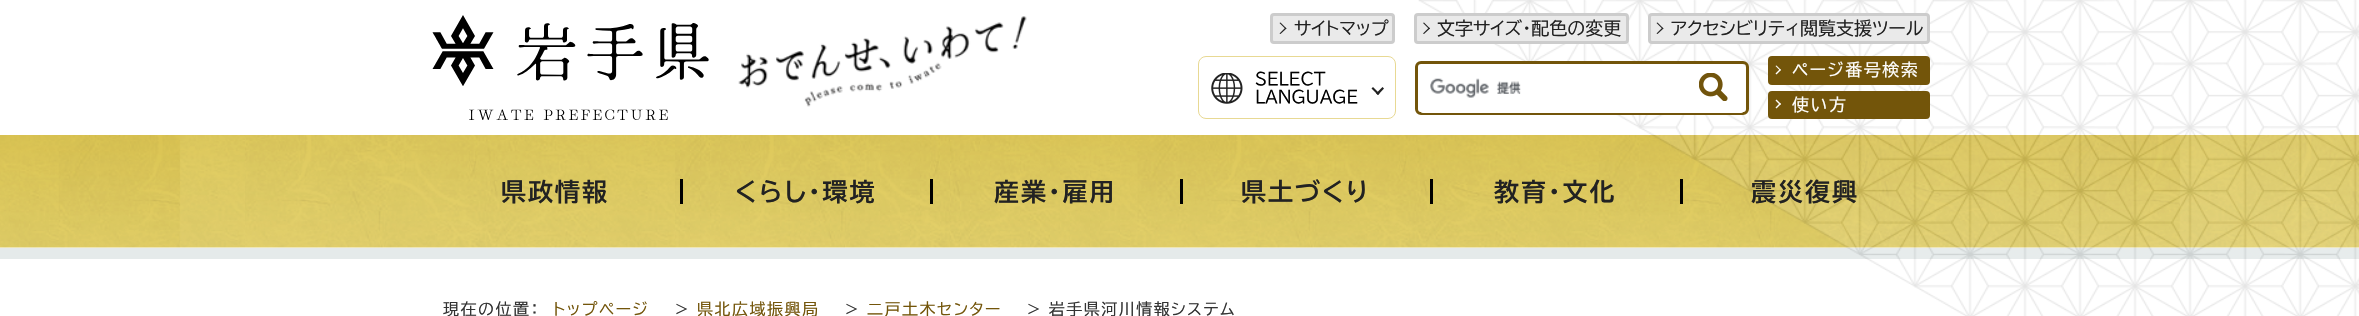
#include "include/core/SkBlurTypes.h"
#include "include/core/SkCanvas.h"
#include "include/core/SkData.h"
#include "include/core/SkFont.h"
#include "include/core/SkFontMgr.h"
#include "include/core/SkImage.h"
#include "include/core/SkMaskFilter.h"
#include "include/core/SkPaint.h"
#include "include/core/SkPathBuilder.h"
#include "include/core/SkTextBlob.h"
#include "include/effects/SkDashPathEffect.h"
#include "include/effects/SkGradientShader.h"
#include "include/utils/SkParsePath.h"

extern sk_sp<SkFontMgr> fontMgr;

void draw(SkCanvas* canvas) {
    SkPaint p;
    p.setAntiAlias(true);
    auto font = [&](const char* family, int weight, float size, bool italic = false) {
        SkFontStyle style(weight, SkFontStyle::kNormal_Width,
            italic ? SkFontStyle::kItalic_Slant : SkFontStyle::kUpright_Slant);
        SkFont result(fontMgr->matchFamilyStyle(family, style), size);
        result.setSubpixel(true);
        return result;
    };
    auto drawTracked = [&](const char* s, float x, float y, const SkFont& font, const SkPaint& ink, float letter, float word) {
        std::vector<SkGlyphID> glyphs(font.countText(s, strlen(s), SkTextEncoding::kUTF8));
        std::vector<float> xs(glyphs.size());
        font.textToGlyphs(s, strlen(s), SkTextEncoding::kUTF8, glyphs);
        font.getXPos(glyphs, xs, x);
        float extra = 0;
        for (size_t i = 0; i < glyphs.size(); i++) {
            xs[i] += extra;
            extra += letter + word * (glyphs[i] == font.unicharToGlyph(' '));
        }
        canvas->drawTextBlob(SkTextBlob::MakeFromPosHGlyphs(glyphs, xs, y, font), 0, 0, ink);
    };
    auto drawPhoto = [&](const char* path, float l, float t, float r, float b) {
        auto image = SkImages::DeferredFromEncodedData(SkData::MakeFromFileName(path));
        canvas->drawImageRect(image, SkRect::MakeLTRB(l, t, r, b), SkSamplingOptions());
    };
    canvas->clear(0xFFFFFFFF);
    drawPhoto("media/7.png", 0, 135, 2359, 248);
    p.setColor(0xFFE5EAEA);
    canvas->drawRect(SkRect::MakeLTRB(0, 248, 2359, 259), p);
    drawPhoto("media/1.png", 1418, 0, 2359, 316);
    drawPhoto("media/2.png", 432, 15, 709, 120);
    drawPhoto("media/3.png", 738, 16, 1027, 107);
    p.setColor(0xFFEAEAEA);
    canvas->drawRoundRect(SkRect::MakeLTRB(1271.5f, 14.5f, 1393.5f, 42.5f), 2.5f, 2.5f, p);
    p.setStyle(SkPaint::kStroke_Style);
    p.setStrokeWidth(3);
    p.setColor(0xFFCCCCCC);
    canvas->drawRoundRect(SkRect::MakeLTRB(1271.5f, 14.5f, 1393.5f, 42.5f), 2.5f, 2.5f, p);
    p.setStyle(SkPaint::kFill_Style);
    p.setColor(0xFF222222);
    canvas->drawPath(SkPathBuilder().moveTo(1286.5f, 28.5f).lineTo(1280.5f, 34).lineTo(1279.5f, 33.5f).lineTo(1285.5f, 27.5f).close().detach(), p);
    canvas->drawPath(SkPathBuilder().moveTo(1286.5f, 28.5f).lineTo(1285.5f, 29).lineTo(1279.5f, 23).lineTo(1280.5f, 22.5f).close().detach(), p);
    auto font1 = font("BIZ UDPGothic", 400, 18);
    canvas->drawString("サイトマップ", 1294, 35, font1, p);
    p.setColor(0xFFEAEAEA);
    canvas->drawRoundRect(SkRect::MakeLTRB(1415.5f, 14.5f, 1627.5f, 42.5f), 2.5f, 2.5f, p);
    p.setStyle(SkPaint::kStroke_Style);
    p.setColor(0xFFCCCCCC);
    canvas->drawRoundRect(SkRect::MakeLTRB(1415.5f, 14.5f, 1627.5f, 42.5f), 2.5f, 2.5f, p);
    p.setStyle(SkPaint::kFill_Style);
    p.setColor(0xFF222222);
    canvas->drawPath(SkPathBuilder().moveTo(1430, 28.5f).lineTo(1424, 34).lineTo(1423, 33.5f).lineTo(1429, 27.5f).close().detach(), p);
    canvas->drawPath(SkPathBuilder().moveTo(1430, 28.5f).lineTo(1429, 29).lineTo(1423, 23).lineTo(1424, 22.5f).close().detach(), p);
    canvas->drawString("文字サイズ・配色の変更", 1437, 35, font1, p);
    p.setColor(0xFFEAEAEA);
    canvas->drawRoundRect(SkRect::MakeLTRB(1649.5f, 14.5f, 1928.5f, 42.5f), 2.5f, 2.5f, p);
    p.setStyle(SkPaint::kStroke_Style);
    p.setColor(0xFFCCCCCC);
    canvas->drawRoundRect(SkRect::MakeLTRB(1649.5f, 14.5f, 1928.5f, 42.5f), 2.5f, 2.5f, p);
    p.setStyle(SkPaint::kFill_Style);
    p.setColor(0xFF222222);
    canvas->drawPath(SkPathBuilder().moveTo(1663.5f, 28.5f).lineTo(1657.5f, 34).lineTo(1656.5f, 33.5f).lineTo(1662.5f, 27.5f).close().detach(), p);
    canvas->drawPath(SkPathBuilder().moveTo(1663.5f, 28.5f).lineTo(1662.5f, 29).lineTo(1656.5f, 23).lineTo(1657.5f, 22.5f).close().detach(), p);
    canvas->drawString("アクセシビリティ閲覧支援ツール", 1671, 35, font1, p);
    drawPhoto("media/4.png", 1211, 73, 1243, 104);
    p.setStyle(SkPaint::kStroke_Style);
    p.setStrokeWidth(1);
    p.setColor(0xFFE8D993);
    canvas->drawRoundRect(SkRect::MakeLTRB(1198.5f, 56.5f, 1395.5f, 118.5f), 7.5f, 7.5f, p);
    auto font2 = font("BIZ UDPGothic", 400, 16.75f);
    p.setStyle(SkPaint::kFill_Style);
    p.setColor(0xFF000000);
    canvas->drawString("SELECT", 1255, 85, font2, p);
    canvas->drawString("LANGUAGE", 1255, 103, font2, p);
    p.setColor(0xFF222222);
    canvas->drawPath(SkPathBuilder().moveTo(1382.5f, 87).lineTo(1384, 88.5f).lineTo(1378, 95).lineTo(1376, 93.5f).close().detach(), p);
    canvas->drawPath(SkPathBuilder().moveTo(1373, 87).lineTo(1379.5f, 93.5f).lineTo(1378, 95).lineTo(1371.5f, 88.5f).close().detach(), p);
    p.setStyle(SkPaint::kStroke_Style);
    p.setStrokeWidth(3);
    p.setColor(0xFF73550A);
    canvas->drawRoundRect(SkRect::MakeLTRB(1416.5f, 62.5f, 1747.5f, 113.5f), 4.5f, 4.5f, p);
    p.setStyle(SkPaint::kFill_Style);
    p.setColor(0xFFFFFFFF);
    canvas->drawRoundRect(SkRect::MakeLTRB(1418, 64, 1746, 113), 6, 6, p);
    drawPhoto("media/5.png", 1430, 78, 1521, 98);
    p.setStyle(SkPaint::kStroke_Style);
    p.setStrokeWidth(1);
    canvas->drawRoundRect(SkRect::MakeLTRB(1418.5f, 64.5f, 1745.5f, 112.5f), 5.5f, 5.5f, p);
    drawPhoto("media/6.png", 1699, 73, 1728, 101);
    p.setStyle(SkPaint::kFill_Style);
    p.setColor(0xFF73550A);
    canvas->drawRoundRect(SkRect::MakeLTRB(1768, 56, 1930, 85), 4, 4, p);
    p.setColor(0xFFFFFFFF);
    canvas->drawPath(SkPathBuilder().moveTo(1781, 70).lineTo(1776.5f, 74.5f).lineTo(1775.5f, 73.5f).lineTo(1780, 69).close().detach(), p);
    canvas->drawPath(SkPathBuilder().moveTo(1781, 70).lineTo(1780, 70.5f).lineTo(1775.5f, 66).lineTo(1776.5f, 65.5f).close().detach(), p);
    auto font3 = font("BIZ UDPGothic", 400, 17);
    drawTracked("ページ番号検索", 1792, 76, font3, p, 1.5f, 0);
    p.setColor(0xFF73550A);
    canvas->drawRoundRect(SkRect::MakeLTRB(1768, 91, 1930, 119), 4, 4, p);
    p.setColor(0xFFFFFFFF);
    canvas->drawPath(SkPathBuilder().moveTo(1781, 104).lineTo(1776.5f, 108.5f).lineTo(1775.5f, 107.5f).lineTo(1780, 103).close().detach(), p);
    canvas->drawPath(SkPathBuilder().moveTo(1781, 104).lineTo(1780, 105).lineTo(1775.5f, 100.5f).lineTo(1776.5f, 99.5f).close().detach(), p);
    drawTracked("使い方", 1792, 111, font3, p, 1.5f, 0);
    auto font4 = font("BIZ UDPGothic", 700, 25);
    p.setColor(0xFF222222);
    drawTracked("県政情報", 501, 201, font4, p, 2, 0);
    p.setColor(0xFF000000);
    canvas->drawRect(SkRect::MakeLTRB(680, 179, 683, 204), p);
    p.setColor(0xFF222222);
    drawTracked("くらし・環境", 735, 201, font4, p, 2, 0);
    p.setColor(0xFF000000);
    canvas->drawRect(SkRect::MakeLTRB(930, 179, 933, 204), p);
    p.setColor(0xFF222222);
    drawTracked("産業・雇用", 994, 201, font4, p, 2, 0);
    p.setColor(0xFF000000);
    canvas->drawRect(SkRect::MakeLTRB(1180, 179, 1183, 204), p);
    p.setColor(0xFF222222);
    drawTracked("県土づくり", 1241, 201, font4, p, 2, 0);
    p.setColor(0xFF000000);
    canvas->drawRect(SkRect::MakeLTRB(1430, 179, 1433, 204), p);
    p.setColor(0xFF222222);
    drawTracked("教育・文化", 1494, 201, font4, p, 2, 0);
    p.setColor(0xFF000000);
    canvas->drawRect(SkRect::MakeLTRB(1680, 179, 1683, 204), p);
    p.setColor(0xFF222222);
    drawTracked("震災復興", 1751, 201, font4, p, 2, 0);
    auto font5 = font("BIZ UDPGothic", 400, 16);
    p.setColor(0xFF333333);
    drawTracked("現在の位置：", 443, 315, font5, p, 1.5f, 0);
    p.setColor(0xFF73550A);
    drawTracked("トップページ", 553, 315, font5, p, 1.5f, 0);
    p.setColor(0xFF333333);
    drawTracked(">", 675, 315, font5, p, 1.5f, 0);
    p.setColor(0xFF73550A);
    drawTracked("県北広域振興局", 697, 315, font5, p, 1.5f, 0);
    p.setColor(0xFF333333);
    drawTracked(">", 845, 315, font5, p, 1.5f, 0);
    p.setColor(0xFF73550A);
    drawTracked("二戸土木センター", 867, 315, font5, p, 1.5f, 0);
    p.setColor(0xFF333333);
    drawTracked("> 岩手県河川情報システム", 1027, 315, font5, p, 1.5f, 0);
}
